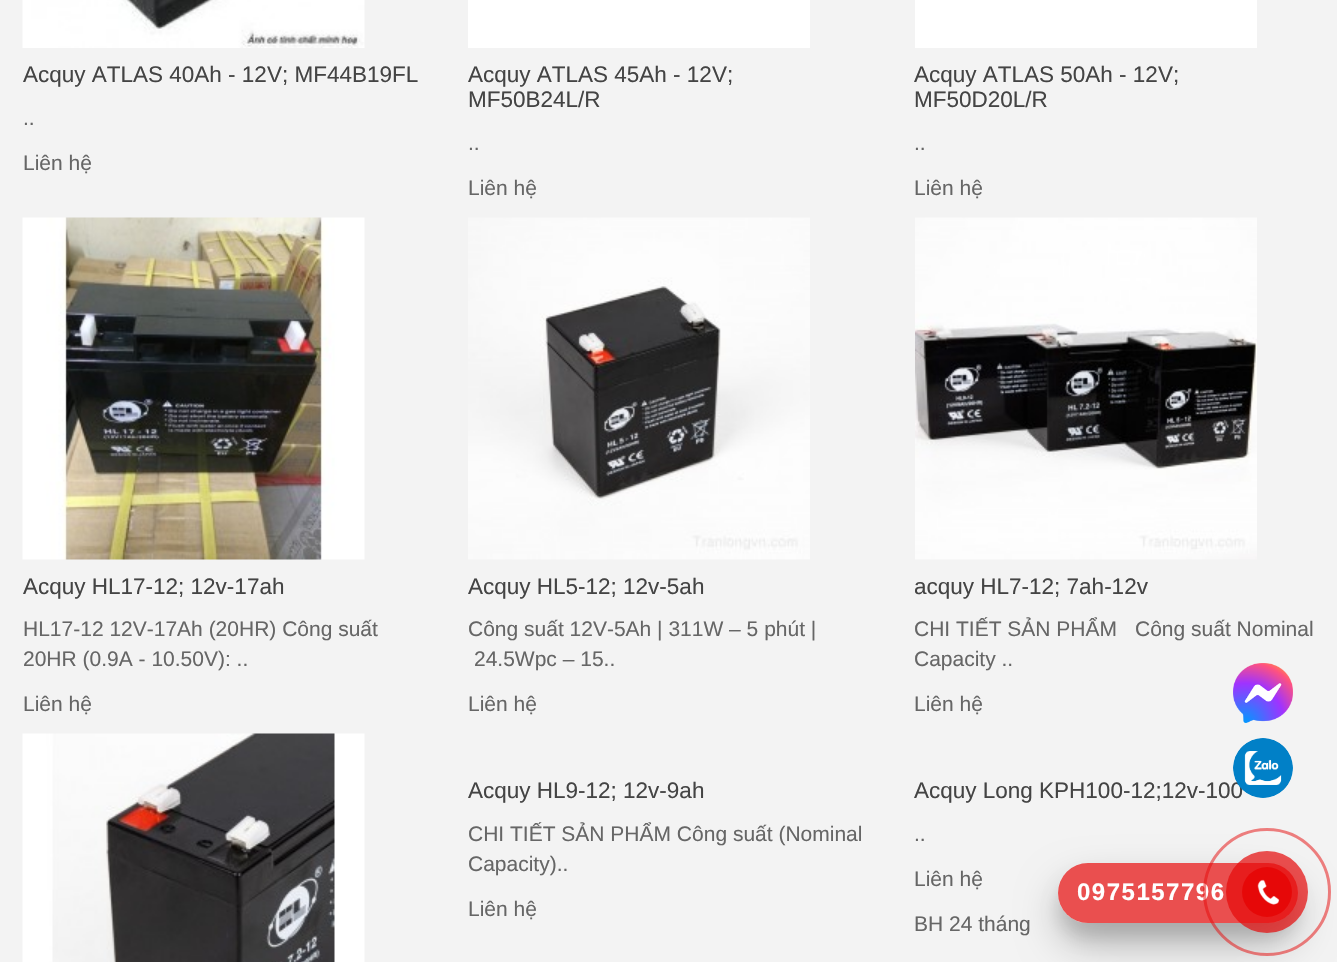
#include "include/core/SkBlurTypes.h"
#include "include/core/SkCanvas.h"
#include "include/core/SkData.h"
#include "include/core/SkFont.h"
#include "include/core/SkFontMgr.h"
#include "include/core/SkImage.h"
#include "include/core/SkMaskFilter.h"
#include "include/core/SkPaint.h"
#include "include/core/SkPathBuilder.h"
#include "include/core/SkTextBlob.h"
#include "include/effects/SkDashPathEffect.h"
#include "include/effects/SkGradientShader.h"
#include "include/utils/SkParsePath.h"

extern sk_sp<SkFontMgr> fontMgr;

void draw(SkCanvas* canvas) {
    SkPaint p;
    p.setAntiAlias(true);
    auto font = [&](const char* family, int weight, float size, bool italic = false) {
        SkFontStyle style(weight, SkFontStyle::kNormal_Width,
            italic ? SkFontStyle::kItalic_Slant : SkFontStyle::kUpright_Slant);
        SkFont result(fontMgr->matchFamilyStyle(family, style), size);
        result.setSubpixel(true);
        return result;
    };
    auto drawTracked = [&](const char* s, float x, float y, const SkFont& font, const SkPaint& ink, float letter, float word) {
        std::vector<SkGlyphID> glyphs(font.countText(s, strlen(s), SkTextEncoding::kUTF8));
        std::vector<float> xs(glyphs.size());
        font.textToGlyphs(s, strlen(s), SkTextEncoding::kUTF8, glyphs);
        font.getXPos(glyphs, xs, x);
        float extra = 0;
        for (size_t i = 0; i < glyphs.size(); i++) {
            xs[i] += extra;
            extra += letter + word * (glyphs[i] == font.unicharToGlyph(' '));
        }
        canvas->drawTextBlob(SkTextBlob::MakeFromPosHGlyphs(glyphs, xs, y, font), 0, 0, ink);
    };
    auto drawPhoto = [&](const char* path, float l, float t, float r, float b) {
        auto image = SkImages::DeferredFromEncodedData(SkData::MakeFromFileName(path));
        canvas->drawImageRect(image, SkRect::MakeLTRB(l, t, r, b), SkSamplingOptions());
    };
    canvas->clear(0xFFF3F3F3);
    drawPhoto("media/1.png", 22, 0, 365, 48);
    auto font1 = font("Liberation Sans", 400, 22.5f);
    p.setColor(0xFF444444);
    canvas->drawString("Acquy ATLAS 40Ah - 12V; MF44B19FL", 23, 82, font1, p);
    auto font2 = font("Liberation Sans", 400, 21);
    p.setColor(0xFF666666);
    canvas->drawString("..", 23, 125, font2, p);
    canvas->drawString("Liên hệ", 23, 170, font2, p);
    p.setColor(0xFFFFFFFF);
    canvas->drawRect(SkRect::MakeLTRB(468, 0, 810, 48), p);
    p.setColor(0xFF444444);
    canvas->drawString("Acquy ATLAS 45Ah - 12V;", 468, 82, font1, p);
    canvas->drawString("MF50B24L/R", 468, 107, font1, p);
    p.setColor(0xFF666666);
    canvas->drawString("..", 468, 150, font2, p);
    canvas->drawString("Liên hệ", 468, 195, font2, p);
    p.setColor(0xFFFFFFFF);
    canvas->drawRect(SkRect::MakeLTRB(915, 0, 1257, 48), p);
    p.setColor(0xFF444444);
    canvas->drawString("Acquy ATLAS 50Ah - 12V;", 914, 82, font1, p);
    canvas->drawString("MF50D20L/R", 914, 107, font1, p);
    p.setColor(0xFF666666);
    canvas->drawString("..", 914, 150, font2, p);
    canvas->drawString("Liên hệ", 914, 195, font2, p);
    drawPhoto("media/2.png", 22, 217, 365, 560);
    p.setColor(0xFF444444);
    canvas->drawString("Acquy HL17-12; 12v-17ah", 23, 594, font1, p);
    p.setColor(0xFF666666);
    {
        const struct { const char* s; float x, y; } items[] = {
            {"HL17-12 12V-17Ah (20HR) Công suất", 23, 636},
            {"20HR (0.9A - 10.50V): ..", 23, 666},
            {"Liên hệ", 23, 711},
        };
        for (auto [s, x, y] : items) {
            canvas->drawString(s, x, y, font2, p);
        }
    }
    drawPhoto("media/3.png", 468, 217, 810, 560);
    p.setColor(0xFF444444);
    canvas->drawString("Acquy HL5-12; 12v-5ah", 468, 594, font1, p);
    p.setColor(0xFF666666);
    {
        const struct { const char* s; float x, y; } items[] = {
            {"Công suất 12V-5Ah | 311W – 5 phút |", 468, 636},
            {"24.5Wpc – 15..", 474, 666},
            {"Liên hệ", 468, 711},
        };
        for (auto [s, x, y] : items) {
            canvas->drawString(s, x, y, font2, p);
        }
    }
    drawPhoto("media/4.png", 915, 217, 1257, 560);
    p.setColor(0xFF444444);
    canvas->drawString("acquy HL7-12; 7ah-12v", 914, 594, font1, p);
    p.setColor(0xFF666666);
    {
        const struct { const char* s; float x, y; } items[] = {
            {"CHI TIẾT SẢN PHẨM", 914, 636},
            {"Công suất Nominal", 1135, 636},
            {"Capacity ..", 914, 666},
            {"Liên hệ", 914, 711},
        };
        for (auto [s, x, y] : items) {
            canvas->drawString(s, x, y, font2, p);
        }
    }
    drawPhoto("media/5.png", 22, 733, 365, 962);
    p.setColor(0xFF444444);
    canvas->drawString("Acquy HL9-12; 12v-9ah", 468, 798, font1, p);
    p.setColor(0xFF666666);
    {
        const struct { const char* s; float x, y; } items[] = {
            {"CHI TIẾT SẢN PHẨM Công suất (Nominal", 468, 841},
            {"Capacity)..", 468, 871},
            {"Liên hệ", 468, 916},
        };
        for (auto [s, x, y] : items) {
            canvas->drawString(s, x, y, font2, p);
        }
    }
    p.setColor(0xFF444444);
    canvas->drawString("Acquy Long KPH100-12;12v-100", 914, 798, font1, p);
    p.setColor(0xFF666666);
    {
        const struct { const char* s; float x, y; } items[] = {
            {"..", 914, 841},
            {"Liên hệ", 914, 886},
            {"BH 24 tháng", 914, 931},
        };
        for (auto [s, x, y] : items) {
            canvas->drawString(s, x, y, font2, p);
        }
    }
    drawPhoto("media/6.png", 1233, 663, 1293, 723);
    drawPhoto("media/7.png", 1233, 738, 1293, 798);
    canvas->save();
    canvas->clipPath(SkPathBuilder(SkPathFillType::kEvenOdd).moveTo(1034, 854).lineTo(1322, 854).lineTo(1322, 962).lineTo(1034, 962).close().moveTo(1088, 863).lineTo(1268, 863).cubicTo(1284.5f, 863, 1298, 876.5f, 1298, 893).cubicTo(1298, 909.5f, 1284.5f, 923, 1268, 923).lineTo(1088, 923).cubicTo(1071.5f, 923, 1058, 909.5f, 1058, 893).cubicTo(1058, 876.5f, 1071.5f, 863, 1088, 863).close().detach(), true);
    p.setColor(0x1A000000);
    p.setMaskFilter(SkMaskFilter::MakeBlur(kNormal_SkBlurStyle, 7.5f));
    canvas->drawRoundRect(SkRect::MakeLTRB(1058, 878, 1298, 938), 30, 30, p);
    p.setMaskFilter(nullptr);
    canvas->restore();
    canvas->save();
    canvas->clipPath(SkPathBuilder(SkPathFillType::kEvenOdd).moveTo(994, 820).lineTo(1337, 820).lineTo(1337, 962).lineTo(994, 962).close().moveTo(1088, 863).lineTo(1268, 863).cubicTo(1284.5f, 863, 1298, 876.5f, 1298, 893).cubicTo(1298, 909.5f, 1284.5f, 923, 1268, 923).lineTo(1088, 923).cubicTo(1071.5f, 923, 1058, 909.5f, 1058, 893).cubicTo(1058, 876.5f, 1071.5f, 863, 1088, 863).close().detach(), true);
    p.setColor(0x40000000);
    p.setMaskFilter(SkMaskFilter::MakeBlur(kNormal_SkBlurStyle, 21));
    canvas->drawRoundRect(SkRect::MakeLTRB(1058, 884, 1298, 944), 30, 30, p);
    p.setMaskFilter(nullptr);
    canvas->restore();
    p.setColor(0xB3E60808);
    canvas->drawRoundRect(SkRect::MakeLTRB(1058, 863, 1298, 923), 30, 30, p);
    auto font3 = font("Liberation Sans", 700, 24);
    p.setColor(0xFFFFFFFF);
    drawTracked("0975157796", 1077, 900, font3, p, 1.5f, 0);
    p.setStyle(SkPaint::kStroke_Style);
    p.setStrokeWidth(3);
    p.setColor(0x80E60808);
    canvas->drawCircle(1267, 892, 62.5f, p);
    p.setStyle(SkPaint::kFill_Style);
    p.setColor(0xB3E60808);
    canvas->drawCircle(1267, 892, 41, p);
    p.setColor(0xFFE60808);
    canvas->drawCircle(1267, 892, 25, p);
    drawPhoto("media/8.png", 1257, 879, 1280, 905);
}
